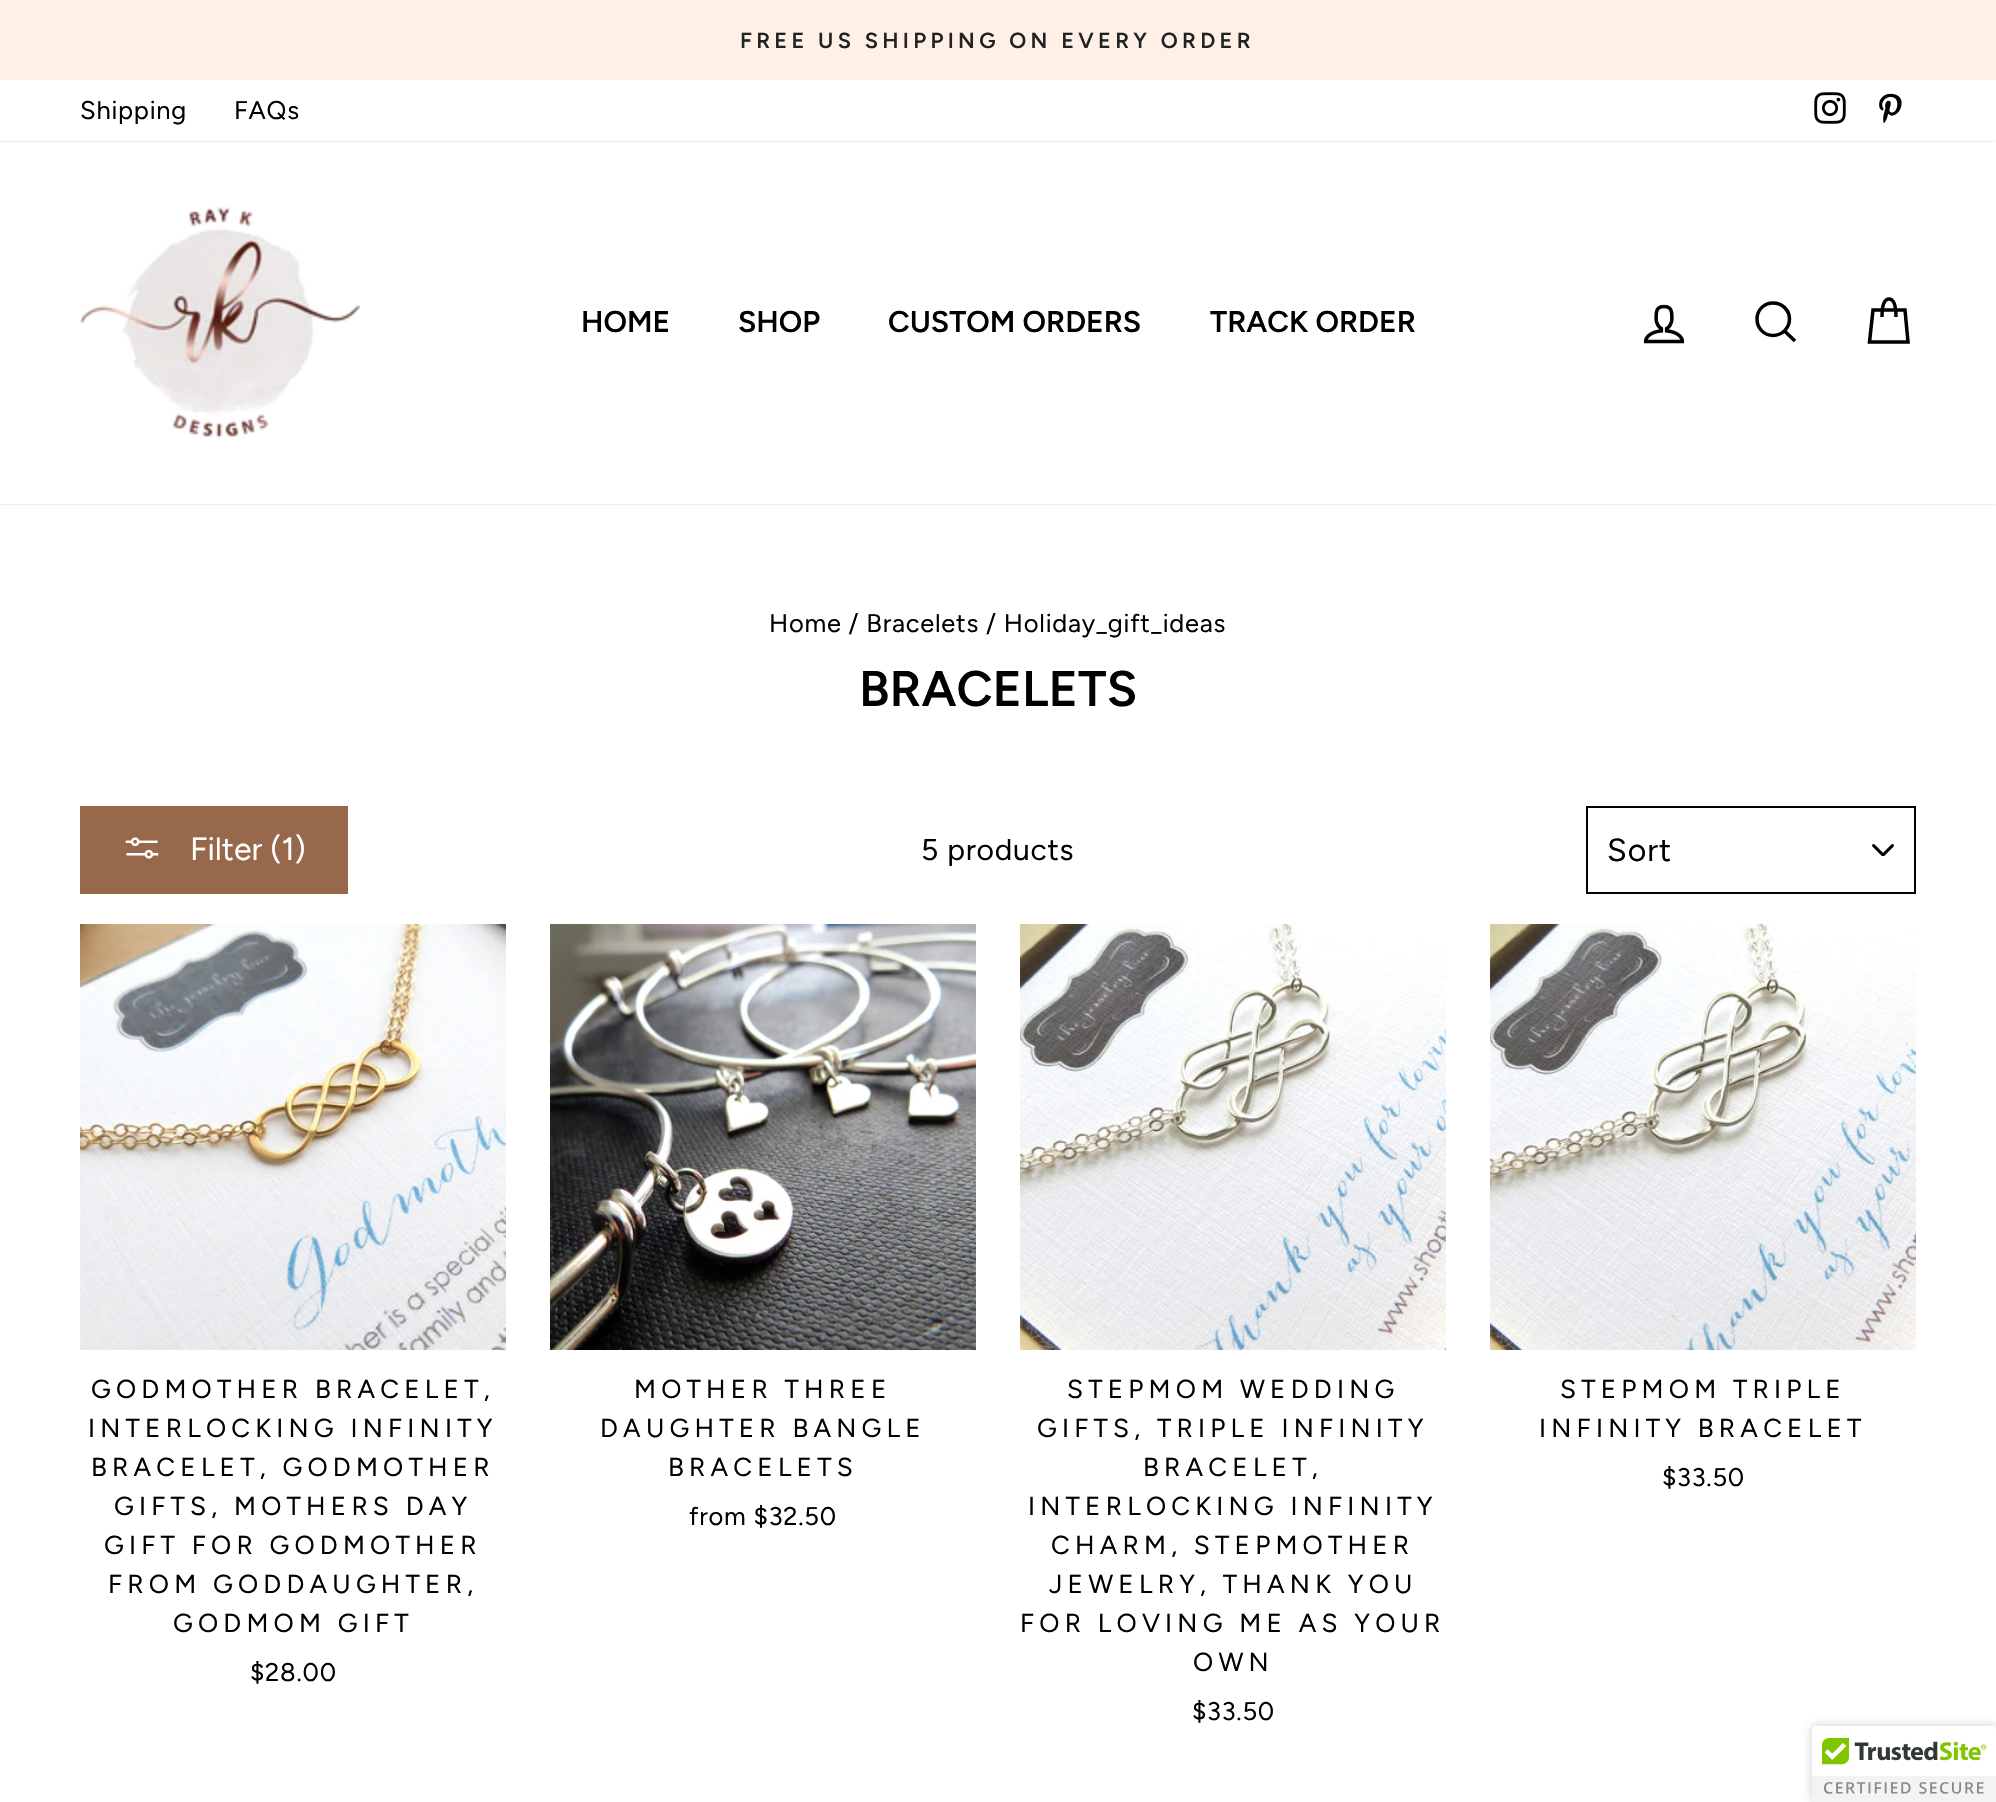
#include "include/core/SkBlurTypes.h"
#include "include/core/SkCanvas.h"
#include "include/core/SkData.h"
#include "include/core/SkFont.h"
#include "include/core/SkFontMgr.h"
#include "include/core/SkImage.h"
#include "include/core/SkMaskFilter.h"
#include "include/core/SkPaint.h"
#include "include/core/SkPathBuilder.h"
#include "include/core/SkTextBlob.h"
#include "include/effects/SkDashPathEffect.h"
#include "include/effects/SkGradientShader.h"
#include "include/utils/SkParsePath.h"

extern sk_sp<SkFontMgr> fontMgr;

void draw(SkCanvas* canvas) {
    SkPaint p;
    p.setAntiAlias(true);
    auto font = [&](const char* family, int weight, float size, bool italic = false) {
        SkFontStyle style(weight, SkFontStyle::kNormal_Width,
            italic ? SkFontStyle::kItalic_Slant : SkFontStyle::kUpright_Slant);
        SkFont result(fontMgr->matchFamilyStyle(family, style), size);
        result.setSubpixel(true);
        return result;
    };
    auto drawTracked = [&](const char* s, float x, float y, const SkFont& font, const SkPaint& ink, float letter, float word) {
        std::vector<SkGlyphID> glyphs(font.countText(s, strlen(s), SkTextEncoding::kUTF8));
        std::vector<float> xs(glyphs.size());
        font.textToGlyphs(s, strlen(s), SkTextEncoding::kUTF8, glyphs);
        font.getXPos(glyphs, xs, x);
        float extra = 0;
        for (size_t i = 0; i < glyphs.size(); i++) {
            xs[i] += extra;
            extra += letter + word * (glyphs[i] == font.unicharToGlyph(' '));
        }
        canvas->drawTextBlob(SkTextBlob::MakeFromPosHGlyphs(glyphs, xs, y, font), 0, 0, ink);
    };
    auto drawPhoto = [&](const char* path, float l, float t, float r, float b) {
        auto image = SkImages::DeferredFromEncodedData(SkData::MakeFromFileName(path));
        canvas->drawImageRect(image, SkRect::MakeLTRB(l, t, r, b), SkSamplingOptions());
    };
    canvas->clear(0xFFFFFFFF);
    p.setColor(0xFFFFF0E7);
    canvas->drawRect(SkRect::MakeLTRB(0, 0, 1996, 80), p);
    auto font1 = font("Figtree", 600, 21.7f);
    p.setColor(0xFF222222);
    drawTracked("FREE US SHIPPING ON EVERY ORDER", 740, 48, font1, p, 4.3f, 0);
    auto font2 = font("Figtree", 400, 25.5f);
    p.setColor(0xFF000000);
    drawTracked("Shipping", 80, 119, font2, p, 0.75f, 0);
    drawTracked("FAQs", 234, 119, font2, p, 0.75f, 0);
    drawPhoto("media/1.png", 1814, 92, 1846, 124);
    drawPhoto("media/2.png", 1879, 93, 1902, 124);
    canvas->save();
    canvas->clipPath(SkPathBuilder(SkPathFillType::kEvenOdd).moveTo(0, 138).lineTo(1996, 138).lineTo(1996, 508).lineTo(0, 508).close().moveTo(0, 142).lineTo(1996, 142).lineTo(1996, 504).lineTo(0, 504).close().detach(), true);
    p.setColor(0x33000000);
    p.setMaskFilter(SkMaskFilter::MakeBlur(kNormal_SkBlurStyle, 1));
    canvas->drawRect(SkRect::MakeLTRB(0, 142, 1996, 504), p);
    p.setMaskFilter(nullptr);
    canvas->restore();
    drawPhoto("media/3.png", 80, 207, 360, 439);
    auto font3 = font("Figtree", 600, 30);
    p.setColor(0xFF000000);
    {
        const struct { const char* s; float x, y; } items[] = {
            {"HOME", 581, 332},
            {"SHOP", 738, 332},
            {"CUSTOM ORDERS", 888, 332},
            {"TRACK ORDER", 1210, 332},
        };
        for (auto [s, x, y] : items) {
            canvas->drawString(s, x, y, font3, p);
        }
    }
    drawPhoto("media/4.png", 1643, 304, 1685, 344);
    p.setStyle(SkPaint::kStroke_Style);
    p.setStrokeWidth(3.5f);
    canvas->drawPath(SkPathBuilder().moveTo(1789.5f, 319).cubicTo(1789.5f, 328, 1782, 335.5f, 1773, 335.5f).cubicTo(1764, 335.5f, 1757, 328, 1757, 319).cubicTo(1757, 310, 1764, 303, 1773, 303).cubicTo(1782, 303, 1789.5f, 310, 1789.5f, 319).close().moveTo(1795, 341).lineTo(1784.5f, 331).detach(), p);
    canvas->drawPath(SkPathBuilder().moveTo(1882, 317).cubicTo(1882, 303, 1885, 299, 1889, 299).cubicTo(1893, 299, 1896, 303, 1896, 317).moveTo(1873, 310).lineTo(1905, 310).lineTo(1908, 342).lineTo(1869.5f, 342).close().detach(), p);
    p.setStyle(SkPaint::kFill_Style);
    drawTracked("Home / Bracelets / Holiday_gift_ideas", 769, 632, font2, p, 0.75f, 0);
    auto font4 = font("Figtree", 600, 50);
    canvas->drawString("BRACELETS", 859, 706, font4, p);
    p.setColor(0xFF97684C);
    canvas->drawRect(SkRect::MakeLTRB(80, 806, 348, 894), p);
    drawPhoto("media/5.png", 125, 837, 159, 859);
    auto font5 = font("Figtree", 400, 32);
    p.setColor(0xFFFFFFFF);
    canvas->drawString("Filter (1)", 190, 860, font5, p);
    auto font6 = font("Figtree", 400, 30);
    p.setColor(0xFF000000);
    drawTracked("5 products", 921, 860, font6, p, 0.75f, 0);
    drawPhoto("media/6.png", 1872, 844, 1894, 856);
    p.setStyle(SkPaint::kStroke_Style);
    p.setStrokeWidth(2);
    canvas->drawRect(SkRect::MakeLTRB(1587, 807, 1915, 893), p);
    p.setStyle(SkPaint::kFill_Style);
    drawTracked("Sort", 1607, 861, font5, p, 1, 0);
    drawPhoto("media/7.png", 80, 924, 506, 1350);
    p.setColor(0xFFE6E9EC);
    drawTracked("i", 317, 1312, font2, p, 0.75f, 0);
    auto font7 = font("Figtree", 400, 26);
    p.setColor(0xFF000000);
    {
        const struct { const char* s; float x, y; } items[] = {
            {"GODMOTHER BRACELET,", 91, 1398},
            {"INTERLOCKING INFINITY", 88, 1437},
            {"BRACELET, GODMOTHER", 91, 1476},
            {"GIFTS, MOTHERS DAY", 114, 1515},
            {"GIFT FOR GODMOTHER", 104, 1554},
            {"FROM GODDAUGHTER,", 108, 1593},
            {"GODMOM GIFT", 173, 1632},
        };
        for (auto [s, x, y] : items) {
            drawTracked(s, x, y, font7, p, 5.2f, 0);
        }
    }
    drawTracked("$28.00", 250, 1681, font2, p, 0.75f, 0);
    drawPhoto("media/8.png", 550, 924, 976, 1350);
    {
        const struct { const char* s; float x, y; } items[] = {
            {"MOTHER THREE", 634, 1398},
            {"DAUGHTER BANGLE", 600, 1437},
            {"BRACELETS", 668, 1476},
        };
        for (auto [s, x, y] : items) {
            drawTracked(s, x, y, font7, p, 5.2f, 0);
        }
    }
    drawTracked("from $32.50", 689, 1525, font2, p, 0.75f, 0);
    drawPhoto("media/9.png", 1020, 924, 1446, 1350);
    {
        const struct { const char* s; float x, y; } items[] = {
            {"STEPMOM WEDDING", 1067, 1398},
            {"GIFTS, TRIPLE INFINITY", 1037, 1437},
            {"BRACELET,", 1143, 1476},
            {"INTERLOCKING INFINITY", 1028, 1515},
            {"CHARM, STEPMOTHER", 1051, 1554},
            {"JEWELRY, THANK YOU", 1049, 1593},
            {"FOR LOVING ME AS YOUR", 1020, 1632},
            {"OWN", 1193, 1671},
        };
        for (auto [s, x, y] : items) {
            drawTracked(s, x, y, font7, p, 5.2f, 0);
        }
    }
    drawTracked("$33.50", 1192, 1720, font2, p, 0.75f, 0);
    drawPhoto("media/10.png", 1490, 924, 1916, 1350);
    drawTracked("STEPMOM TRIPLE", 1560, 1398, font7, p, 5.2f, 0);
    drawTracked("INFINITY BRACELET", 1539, 1437, font7, p, 5.2f, 0);
    drawTracked("$33.50", 1662, 1486, font2, p, 0.75f, 0);
    p.setColor(0x33000000);
    p.setMaskFilter(SkMaskFilter::MakeBlur(kNormal_SkBlurStyle, 5));
    canvas->drawRoundRect(SkRect::MakeLTRB(1812, 1726, 1996, 1802), 4, 4, p);
    p.setMaskFilter(nullptr);
    p.setColor(0xFFFFFFFF);
    canvas->drawPath(SkPathBuilder().moveTo(1816, 1726).lineTo(1996, 1726).lineTo(1996, 1802).lineTo(1812, 1802).lineTo(1812, 1730).cubicTo(1812, 1728, 1814, 1726, 1816, 1726).close().detach(), p);
    drawPhoto("media/11.png", 1812, 1726, 1996, 1802);
}
